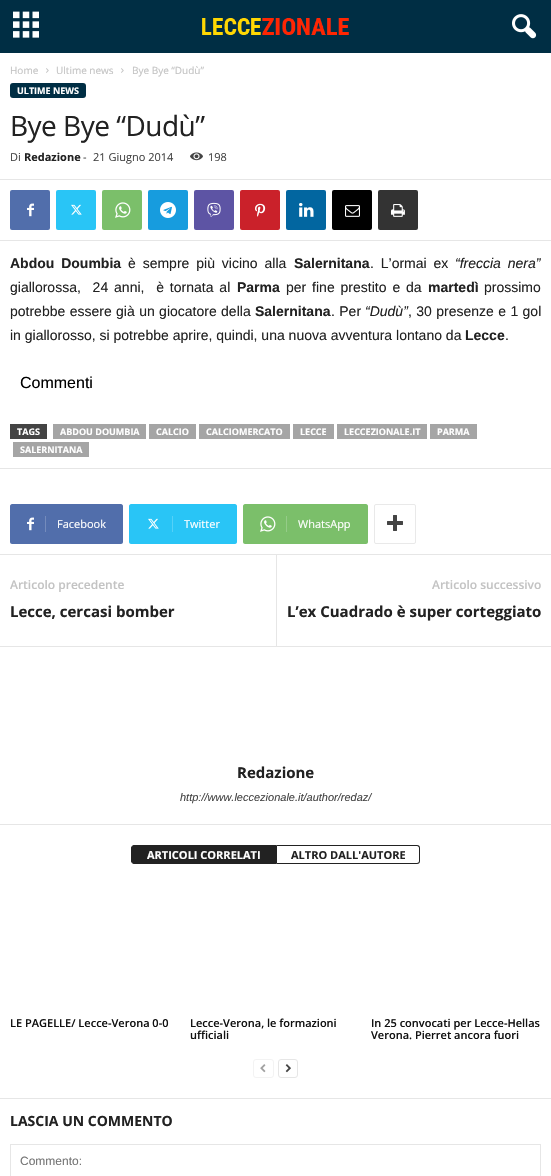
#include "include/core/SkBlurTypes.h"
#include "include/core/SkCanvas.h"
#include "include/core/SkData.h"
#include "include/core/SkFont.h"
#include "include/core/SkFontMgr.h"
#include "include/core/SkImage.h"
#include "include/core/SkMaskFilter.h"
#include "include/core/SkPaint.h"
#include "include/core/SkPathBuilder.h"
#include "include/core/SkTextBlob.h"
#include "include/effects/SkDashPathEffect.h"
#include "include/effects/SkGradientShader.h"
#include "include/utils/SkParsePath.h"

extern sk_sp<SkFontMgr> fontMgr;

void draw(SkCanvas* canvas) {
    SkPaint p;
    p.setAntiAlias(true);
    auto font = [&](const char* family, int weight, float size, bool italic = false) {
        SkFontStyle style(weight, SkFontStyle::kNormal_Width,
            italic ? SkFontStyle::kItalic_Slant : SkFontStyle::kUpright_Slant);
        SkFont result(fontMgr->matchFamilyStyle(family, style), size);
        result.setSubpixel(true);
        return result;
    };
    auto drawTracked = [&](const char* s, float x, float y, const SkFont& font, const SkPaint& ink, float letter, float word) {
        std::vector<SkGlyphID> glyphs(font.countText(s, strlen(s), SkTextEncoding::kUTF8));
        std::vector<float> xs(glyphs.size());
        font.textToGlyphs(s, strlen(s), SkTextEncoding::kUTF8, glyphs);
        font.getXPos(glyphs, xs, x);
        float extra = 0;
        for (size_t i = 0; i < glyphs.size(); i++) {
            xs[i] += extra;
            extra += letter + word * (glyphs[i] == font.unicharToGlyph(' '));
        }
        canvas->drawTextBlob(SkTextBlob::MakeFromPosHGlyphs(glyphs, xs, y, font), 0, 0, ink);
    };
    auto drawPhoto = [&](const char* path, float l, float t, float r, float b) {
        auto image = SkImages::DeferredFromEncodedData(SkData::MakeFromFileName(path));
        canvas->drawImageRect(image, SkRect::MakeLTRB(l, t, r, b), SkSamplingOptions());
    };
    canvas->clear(0xFFFFFFFF);
    p.setColor(0xFF002E44);
    canvas->drawRect(SkRect::MakeLTRB(0, 0, 551, 53), p);
    drawPhoto("media/1.png", 13, 11, 39, 38);
    drawPhoto("media/2.png", 202, 18, 349, 35);
    drawPhoto("media/3.png", 512, 14, 537, 39);
    auto font1 = font("Open Sans", 400, 10);
    p.setColor(0xFFC3C3C3);
    canvas->drawString("Home", 10, 74, font1, p);
    drawPhoto("media/4.png", 46, 68, 49, 73);
    canvas->drawString("Ultime news", 56, 74, font1, p);
    drawPhoto("media/4.png", 121, 68, 124, 73);
    canvas->drawString("Bye Bye “Dudù”", 132, 74, font1, p);
    p.setColor(0xFF002E44);
    canvas->drawRoundRect(SkRect::MakeLTRB(10, 83, 86, 98), 3, 3, p);
    auto font2 = font("Open Sans", 700, 9);
    p.setColor(0xFFFFFFFF);
    canvas->drawString("ULTIME NEWS", 17, 94, font2, p);
    auto font3 = font("Open Sans", 400, 28);
    p.setColor(0xFF222222);
    drawTracked("Bye Bye “Dudù”", 10, 136, font3, p, -0.5f, 0);
    auto font4 = font("Open Sans", 400, 11);
    p.setColor(0xFF444444);
    canvas->drawString("Di", 10, 161, font4, p);
    auto font5 = font("Open Sans", 700, 11);
    p.setColor(0xFF222222);
    canvas->drawString("Redazione", 24, 161, font5, p);
    p.setColor(0xFF444444);
    canvas->drawString("-", 83, 161, font4, p);
    canvas->drawString("21 Giugno 2014", 93, 161, font4, p);
    drawPhoto("media/5.png", 190, 152, 203, 161);
    canvas->drawString("198", 208, 161, font4, p);
    p.setColor(0xFFE6E6E6);
    canvas->drawRect(SkRect::MakeLTRB(0, 179, 551, 180), p);
    p.setColor(0xFF516EAB);
    canvas->drawRoundRect(SkRect::MakeLTRB(10, 190, 50, 230), 2, 2, p);
    drawPhoto("media/6.png", 27, 203, 34, 217);
    p.setColor(0xFF29C5F6);
    canvas->drawRoundRect(SkRect::MakeLTRB(56, 190, 96, 230), 2, 2, p);
    drawPhoto("media/7.png", 71, 204, 82, 215);
    p.setColor(0xFF7BBF6A);
    canvas->drawRoundRect(SkRect::MakeLTRB(102, 190, 142, 230), 2, 2, p);
    drawPhoto("media/8.png", 115, 202, 131, 218);
    p.setColor(0xFF179CDE);
    canvas->drawRoundRect(SkRect::MakeLTRB(148, 190, 188, 230), 2, 2, p);
    drawPhoto("media/9.png", 160, 202, 176, 218);
    p.setColor(0xFF5D54A4);
    canvas->drawRoundRect(SkRect::MakeLTRB(194, 190, 234, 230), 2, 2, p);
    drawPhoto("media/10.png", 207, 202, 221, 217);
    p.setColor(0xFFCA212A);
    canvas->drawRoundRect(SkRect::MakeLTRB(240, 190, 280, 230), 2, 2, p);
    drawPhoto("media/11.png", 255, 203, 266, 217);
    p.setColor(0xFF0266A0);
    canvas->drawRoundRect(SkRect::MakeLTRB(286, 190, 326, 230), 2, 2, p);
    drawPhoto("media/12.png", 299, 203, 314, 217);
    p.setColor(0xFF000000);
    canvas->drawRoundRect(SkRect::MakeLTRB(332, 190, 372, 230), 2, 2, p);
    drawPhoto("media/13.png", 345, 205, 360, 217);
    p.setColor(0xFF333333);
    canvas->drawRoundRect(SkRect::MakeLTRB(378, 190, 418, 230), 2, 2, p);
    drawPhoto("media/14.png", 391, 204, 405, 217);
    p.setColor(0xFFE6E6E6);
    canvas->drawRect(SkRect::MakeLTRB(0, 240, 551, 241), p);
    auto font6 = font("Liberation Sans", 700, 14);
    p.setColor(0xFF222222);
    drawTracked("Abdou Doumbia", 10, 268, font6, p, 0, 3);
    auto font7 = font("Liberation Sans", 400, 14);
    drawTracked("è sempre più vicino alla", 128, 268, font7, p, 0, 3);
    canvas->drawString("Salernitana", 294, 268, font6, p);
    drawTracked(". L’ormai ex", 370, 268, font7, p, 0, 3);
    auto font8 = font("Liberation Sans", 400, 14, true);
    drawTracked("“freccia nera”", 455, 268, font8, p, 0, 3);
    drawTracked("giallorossa,  24 anni,  è tornata al", 10, 292, font7, p, 0, 2);
    canvas->drawString("Parma", 237, 292, font6, p);
    drawTracked("per fine prestito e da", 286, 292, font7, p, 0, 2);
    canvas->drawString("martedì", 428, 292, font6, p);
    canvas->drawString("prossimo", 484, 292, font7, p);
    drawTracked("potrebbe essere già un giocatore della", 10, 316, font7, p, 0, 0.5f);
    canvas->drawString("Salernitana", 255, 316, font6, p);
    drawTracked(". Per", 331, 316, font7, p, 0, 0.5f);
    canvas->drawString("“Dudù”", 365, 316, font8, p);
    drawTracked(", 30 presenze e 1 gol", 408, 316, font7, p, 0, 0.5f);
    canvas->drawString("in giallorosso, si potrebbe aprire, quindi, una nuova avventura lontano da", 10, 340, font7, p);
    canvas->drawString("Lecce", 465, 340, font6, p);
    canvas->drawString(".", 505, 340, font7, p);
    auto font9 = font("Liberation Sans", 400, 16);
    p.setColor(0xFF000000);
    canvas->drawString("Commenti", 20, 388, font9, p);
    p.setColor(0xFF444444);
    canvas->drawRect(SkRect::MakeLTRB(10, 424, 47, 439), p);
    p.setColor(0xFFFFFFFF);
    canvas->drawString("TAGS", 17, 435, font2, p);
    p.setColor(0xFFA5A5A5);
    canvas->drawRect(SkRect::MakeLTRB(53, 424, 146, 439), p);
    p.setColor(0xFFFFFFFF);
    canvas->drawString("ABDOU DOUMBIA", 60, 435, font2, p);
    p.setColor(0xFFA5A5A5);
    canvas->drawRect(SkRect::MakeLTRB(149, 424, 196, 439), p);
    p.setColor(0xFFFFFFFF);
    canvas->drawString("CALCIO", 156, 435, font2, p);
    p.setColor(0xFFA5A5A5);
    canvas->drawRect(SkRect::MakeLTRB(199, 424, 290, 439), p);
    p.setColor(0xFFFFFFFF);
    canvas->drawString("CALCIOMERCATO", 206, 435, font2, p);
    p.setColor(0xFFA5A5A5);
    canvas->drawRect(SkRect::MakeLTRB(293, 424, 334, 439), p);
    p.setColor(0xFFFFFFFF);
    canvas->drawString("LECCE", 300, 435, font2, p);
    p.setColor(0xFFA5A5A5);
    canvas->drawRect(SkRect::MakeLTRB(337, 424, 427, 439), p);
    p.setColor(0xFFFFFFFF);
    canvas->drawString("LECCEZIONALE.IT", 344, 435, font2, p);
    p.setColor(0xFFA5A5A5);
    canvas->drawRect(SkRect::MakeLTRB(430, 424, 477, 439), p);
    p.setColor(0xFFFFFFFF);
    canvas->drawString("PARMA", 437, 435, font2, p);
    p.setColor(0xFFA5A5A5);
    canvas->drawRect(SkRect::MakeLTRB(13, 442, 89, 457), p);
    p.setColor(0xFFFFFFFF);
    canvas->drawString("SALERNITANA", 20, 453, font2, p);
    p.setColor(0xFFE6E6E6);
    canvas->drawRect(SkRect::MakeLTRB(0, 468, 551, 469), p);
    p.setColor(0xFF516EAB);
    canvas->drawPath(SkPathBuilder().moveTo(45, 504).lineTo(121, 504).cubicTo(122, 504, 123, 505, 123, 506).lineTo(123, 542).cubicTo(123, 543, 122, 544, 121, 544).lineTo(45, 544).close().detach(), p);
    canvas->drawPath(SkPathBuilder().moveTo(12, 504).lineTo(51, 504).lineTo(51, 544).lineTo(12, 544).cubicTo(11, 544, 10, 543, 10, 542).lineTo(10, 506).cubicTo(10, 505, 11, 504, 12, 504).close().detach(), p);
    drawPhoto("media/6.png", 27, 517, 34, 531);
    p.setColor(0xFF748BBC);
    canvas->drawRect(SkRect::MakeLTRB(45, 516, 46, 532), p);
    p.setColor(0xFFFFFFFF);
    canvas->drawString("Facebook", 57, 528, font4, p);
    p.setColor(0xFF29C5F6);
    canvas->drawPath(SkPathBuilder().moveTo(172, 504).lineTo(235, 504).cubicTo(236, 504, 237, 505, 237, 506).lineTo(237, 542).cubicTo(237, 543, 236, 544, 235, 544).lineTo(172, 544).close().detach(), p);
    canvas->drawPath(SkPathBuilder().moveTo(131, 504).lineTo(178, 504).lineTo(178, 544).lineTo(131, 544).cubicTo(130, 544, 129, 543, 129, 542).lineTo(129, 506).cubicTo(129, 505, 130, 504, 131, 504).close().detach(), p);
    drawPhoto("media/7.png", 148, 518, 159, 529);
    p.setColor(0xFF54D1F8);
    canvas->drawRect(SkRect::MakeLTRB(172, 516, 173, 532), p);
    p.setColor(0xFFFFFFFF);
    canvas->drawString("Twitter", 184, 528, font4, p);
    p.setColor(0xFF7BBF6A);
    canvas->drawPath(SkPathBuilder().moveTo(286, 504).lineTo(366, 504).cubicTo(367, 504, 368, 505, 368, 506).lineTo(368, 542).cubicTo(368, 543, 367, 544, 366, 544).lineTo(286, 544).close().detach(), p);
    canvas->drawPath(SkPathBuilder().moveTo(245, 504).lineTo(292, 504).lineTo(292, 544).lineTo(245, 544).cubicTo(244, 544, 243, 543, 243, 542).lineTo(243, 506).cubicTo(243, 505, 244, 504, 245, 504).close().detach(), p);
    drawPhoto("media/8.png", 260, 516, 276, 532);
    p.setColor(0xFF95CC88);
    canvas->drawRect(SkRect::MakeLTRB(286, 516, 287, 532), p);
    p.setColor(0xFFFFFFFF);
    canvas->drawString("WhatsApp", 298, 528, font4, p);
    p.setStyle(SkPaint::kStroke_Style);
    p.setStrokeWidth(1);
    p.setColor(0xFFE9E9E9);
    canvas->drawRoundRect(SkRect::MakeLTRB(374.5f, 504.5f, 415.5f, 543.5f), 1.5f, 1.5f, p);
    drawPhoto("media/15.png", 387, 515, 403, 531);
    p.setStyle(SkPaint::kFill_Style);
    p.setColor(0xFFE6E6E6);
    canvas->drawRect(SkRect::MakeLTRB(0, 554, 551, 555), p);
    auto font10 = font("Open Sans", 600, 12);
    p.setColor(0xFFC3C3C3);
    canvas->drawString("Articolo precedente", 10, 589, font10, p);
    auto font11 = font("Open Sans", 700, 15);
    p.setColor(0xFF222222);
    canvas->drawString("Lecce, cercasi bomber", 10, 617, font11, p);
    p.setColor(0xFFE6E6E6);
    canvas->drawRect(SkRect::MakeLTRB(276, 555, 277, 646), p);
    p.setColor(0xFFC3C3C3);
    canvas->drawString("Articolo successivo", 432, 589, font10, p);
    p.setColor(0xFF222222);
    canvas->drawString("L’ex Cuadrado è super corteggiato", 287, 617, font11, p);
    p.setColor(0xFFE6E6E6);
    canvas->drawRect(SkRect::MakeLTRB(0, 646, 551, 647), p);
    p.setColor(0xFF222222);
    canvas->drawString("Redazione", 237, 778, font11, p);
    auto font12 = font("Liberation Sans", 400, 11, true);
    p.setColor(0xFF444444);
    canvas->drawString("http://www.leccezionale.it/author/redaz/", 180, 801, font12, p);
    p.setColor(0xFFE6E6E6);
    canvas->drawRect(SkRect::MakeLTRB(0, 824, 551, 825), p);
    p.setColor(0xFF222222);
    canvas->drawPath(SkPathBuilder().moveTo(134, 845.5f).lineTo(276.5f, 845.5f).lineTo(276.5f, 863.5f).lineTo(134, 863.5f).cubicTo(132.5f, 863.5f, 131.5f, 862.5f, 131.5f, 861).lineTo(131.5f, 848).cubicTo(131.5f, 846.5f, 132.5f, 845.5f, 134, 845.5f).close().detach(), p);
    p.setStyle(SkPaint::kStroke_Style);
    canvas->drawPath(SkPathBuilder().moveTo(134, 845.5f).lineTo(276.5f, 845.5f).lineTo(276.5f, 863.5f).lineTo(134, 863.5f).cubicTo(132.5f, 863.5f, 131.5f, 862.5f, 131.5f, 861).lineTo(131.5f, 848).cubicTo(131.5f, 846.5f, 132.5f, 845.5f, 134, 845.5f).close().detach(), p);
    p.setStyle(SkPaint::kFill_Style);
    p.setColor(0xFFFFFFFF);
    canvas->drawString("ARTICOLI CORRELATI", 147, 859, font5, p);
    p.setColor(0xFF222222);
    canvas->drawPath(SkPathBuilder(SkPathFillType::kEvenOdd).moveTo(277, 845).lineTo(417, 845).cubicTo(419, 845, 420, 846, 420, 848).lineTo(420, 861).cubicTo(420, 863, 419, 864, 417, 864).lineTo(277, 864).close().moveTo(277, 846).lineTo(417, 846).cubicTo(418, 846, 419, 847, 419, 848).lineTo(419, 861).cubicTo(419, 862, 418, 863, 417, 863).lineTo(277, 863).close().detach(), p);
    canvas->drawString("ALTRO DALL'AUTORE", 291, 859, font5, p);
    auto font13 = font("Open Sans", 600, 11);
    p.setColor(0xFF111111);
    {
        const struct { const char* s; float x, y; } items[] = {
            {"LE PAGELLE/ Lecce-Verona 0-0", 10, 1027},
            {"Lecce-Verona, le formazioni", 190, 1027},
            {"ufficiali", 190, 1039},
            {"In 25 convocati per Lecce-Hellas", 371, 1027},
            {"Verona. Pierret ancora fuori", 371, 1039},
        };
        for (auto [s, x, y] : items) {
            canvas->drawString(s, x, y, font13, p);
        }
    }
    p.setStyle(SkPaint::kStroke_Style);
    p.setColor(0xFFF3F3F3);
    canvas->drawRoundRect(SkRect::MakeLTRB(253.5f, 1059.5f, 273.5f, 1077.5f), 2.5f, 2.5f, p);
    drawPhoto("media/16.png", 260, 1064, 266, 1073);
    p.setColor(0xFFE6E6E6);
    canvas->drawRoundRect(SkRect::MakeLTRB(278.5f, 1059.5f, 297.5f, 1077.5f), 2.5f, 2.5f, p);
    drawPhoto("media/17.png", 285, 1064, 291, 1073);
    p.setStyle(SkPaint::kFill_Style);
    canvas->drawRect(SkRect::MakeLTRB(0, 1098, 551, 1099), p);
    auto font14 = font("Open Sans", 700, 14);
    p.setColor(0xFF222222);
    canvas->drawString("LASCIA UN COMMENTO", 10, 1126, font14, p);
    p.setStyle(SkPaint::kStroke_Style);
    p.setColor(0xFFE6E6E6);
    canvas->drawRect(SkRect::MakeLTRB(10.5f, 1144.5f, 540.5f, 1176.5f), p);
    auto font15 = font("Liberation Sans", 400, 12);
    p.setStyle(SkPaint::kFill_Style);
    p.setColor(0xFF757575);
    canvas->drawString("Commento:", 20, 1165, font15, p);
}
